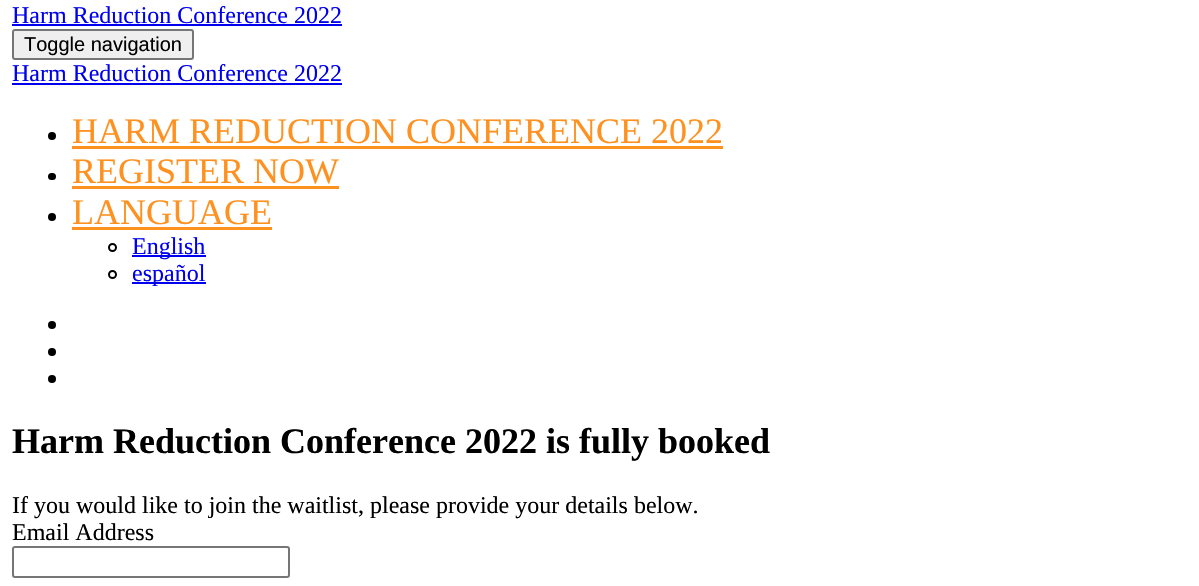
#include "include/core/SkBlurTypes.h"
#include "include/core/SkCanvas.h"
#include "include/core/SkData.h"
#include "include/core/SkFont.h"
#include "include/core/SkFontMgr.h"
#include "include/core/SkImage.h"
#include "include/core/SkMaskFilter.h"
#include "include/core/SkPaint.h"
#include "include/core/SkPathBuilder.h"
#include "include/core/SkTextBlob.h"
#include "include/effects/SkDashPathEffect.h"
#include "include/effects/SkGradientShader.h"
#include "include/utils/SkParsePath.h"

extern sk_sp<SkFontMgr> fontMgr;

void draw(SkCanvas* canvas) {
    SkPaint p;
    p.setAntiAlias(true);
    auto font = [&](const char* family, int weight, float size, bool italic = false) {
        SkFontStyle style(weight, SkFontStyle::kNormal_Width,
            italic ? SkFontStyle::kItalic_Slant : SkFontStyle::kUpright_Slant);
        SkFont result(fontMgr->matchFamilyStyle(family, style), size);
        result.setSubpixel(true);
        return result;
    };
    canvas->clear(0xFFFFFFFF);
    auto font1 = font("Liberation Serif", 400, 24);
    p.setColor(0xFF0000EE);
    canvas->drawString("Harm Reduction Conference 2022", 12, 23, font1, p);
    canvas->drawRect(SkRect::MakeLTRB(12, 24, 342, 26), p);
    p.setColor(0xFFEFEFEF);
    canvas->drawRoundRect(SkRect::MakeLTRB(13, 30, 193, 59), 2, 2, p);
    p.setStyle(SkPaint::kStroke_Style);
    p.setStrokeWidth(2);
    p.setColor(0xFF767676);
    canvas->drawRoundRect(SkRect::MakeLTRB(13, 30, 193, 59), 2, 2, p);
    auto font2 = font("Liberation Sans", 400, 20);
    p.setStyle(SkPaint::kFill_Style);
    p.setColor(0xFF000000);
    canvas->drawString("Toggle navigation", 24, 51, font2, p);
    p.setColor(0xFF0000EE);
    canvas->drawString("Harm Reduction Conference 2022", 12, 81, font1, p);
    canvas->drawRect(SkRect::MakeLTRB(12, 83, 342, 85), p);
    p.setColor(0xFF000000);
    canvas->drawCircle(52, 136, 4, p);
    auto font3 = font("Liberation Serif", 400, 36);
    p.setColor(0xFFFE911F);
    canvas->drawString("HARM REDUCTION CONFERENCE 2022", 72, 143, font3, p);
    canvas->drawRect(SkRect::MakeLTRB(72, 146, 723, 149), p);
    p.setColor(0xFF000000);
    canvas->drawRoundRect(SkRect::MakeLTRB(48, 173, 56, 180), 3.5f, 3.5f, p);
    p.setColor(0xFFFE911F);
    canvas->drawString("REGISTER NOW", 72, 183, font3, p);
    canvas->drawRect(SkRect::MakeLTRB(72, 186, 339, 189), p);
    p.setColor(0xFF000000);
    canvas->drawCircle(52, 217, 4, p);
    p.setColor(0xFFFE911F);
    canvas->drawString("LANGUAGE", 72, 224, font3, p);
    canvas->drawRect(SkRect::MakeLTRB(72, 227, 272, 230), p);
    p.setStyle(SkPaint::kStroke_Style);
    p.setColor(0xFF000000);
    canvas->drawCircle(112.5f, 247.5f, 3.5f, p);
    p.setStyle(SkPaint::kFill_Style);
    p.setColor(0xFF0000EE);
    canvas->drawRect(SkRect::MakeLTRB(132, 255, 206, 257), p);
    canvas->drawString("English", 132, 254, font1, p);
    p.setStyle(SkPaint::kStroke_Style);
    p.setColor(0xFF000000);
    canvas->drawCircle(112.5f, 274.5f, 3.5f, p);
    p.setStyle(SkPaint::kFill_Style);
    p.setColor(0xFF0000EE);
    canvas->drawRect(SkRect::MakeLTRB(132, 282, 206, 284), p);
    canvas->drawString("español", 132, 281, font1, p);
    p.setColor(0xFF000000);
    canvas->drawCircle(52, 325, 4, p);
    canvas->drawCircle(52, 352, 4, p);
    canvas->drawCircle(52, 379, 4, p);
    auto font4 = font("Liberation Serif", 700, 36);
    canvas->drawString("Harm Reduction Conference 2022 is fully booked", 12, 453, font4, p);
    canvas->drawString("If you would like to join the waitlist, please provide your details below.", 12, 513, font1, p);
    canvas->drawString("Email Address", 12, 540, font1, p);
    p.setStyle(SkPaint::kStroke_Style);
    p.setColor(0xFF767676);
    canvas->drawRoundRect(SkRect::MakeLTRB(13, 547, 289, 577), 2, 2, p);
}
